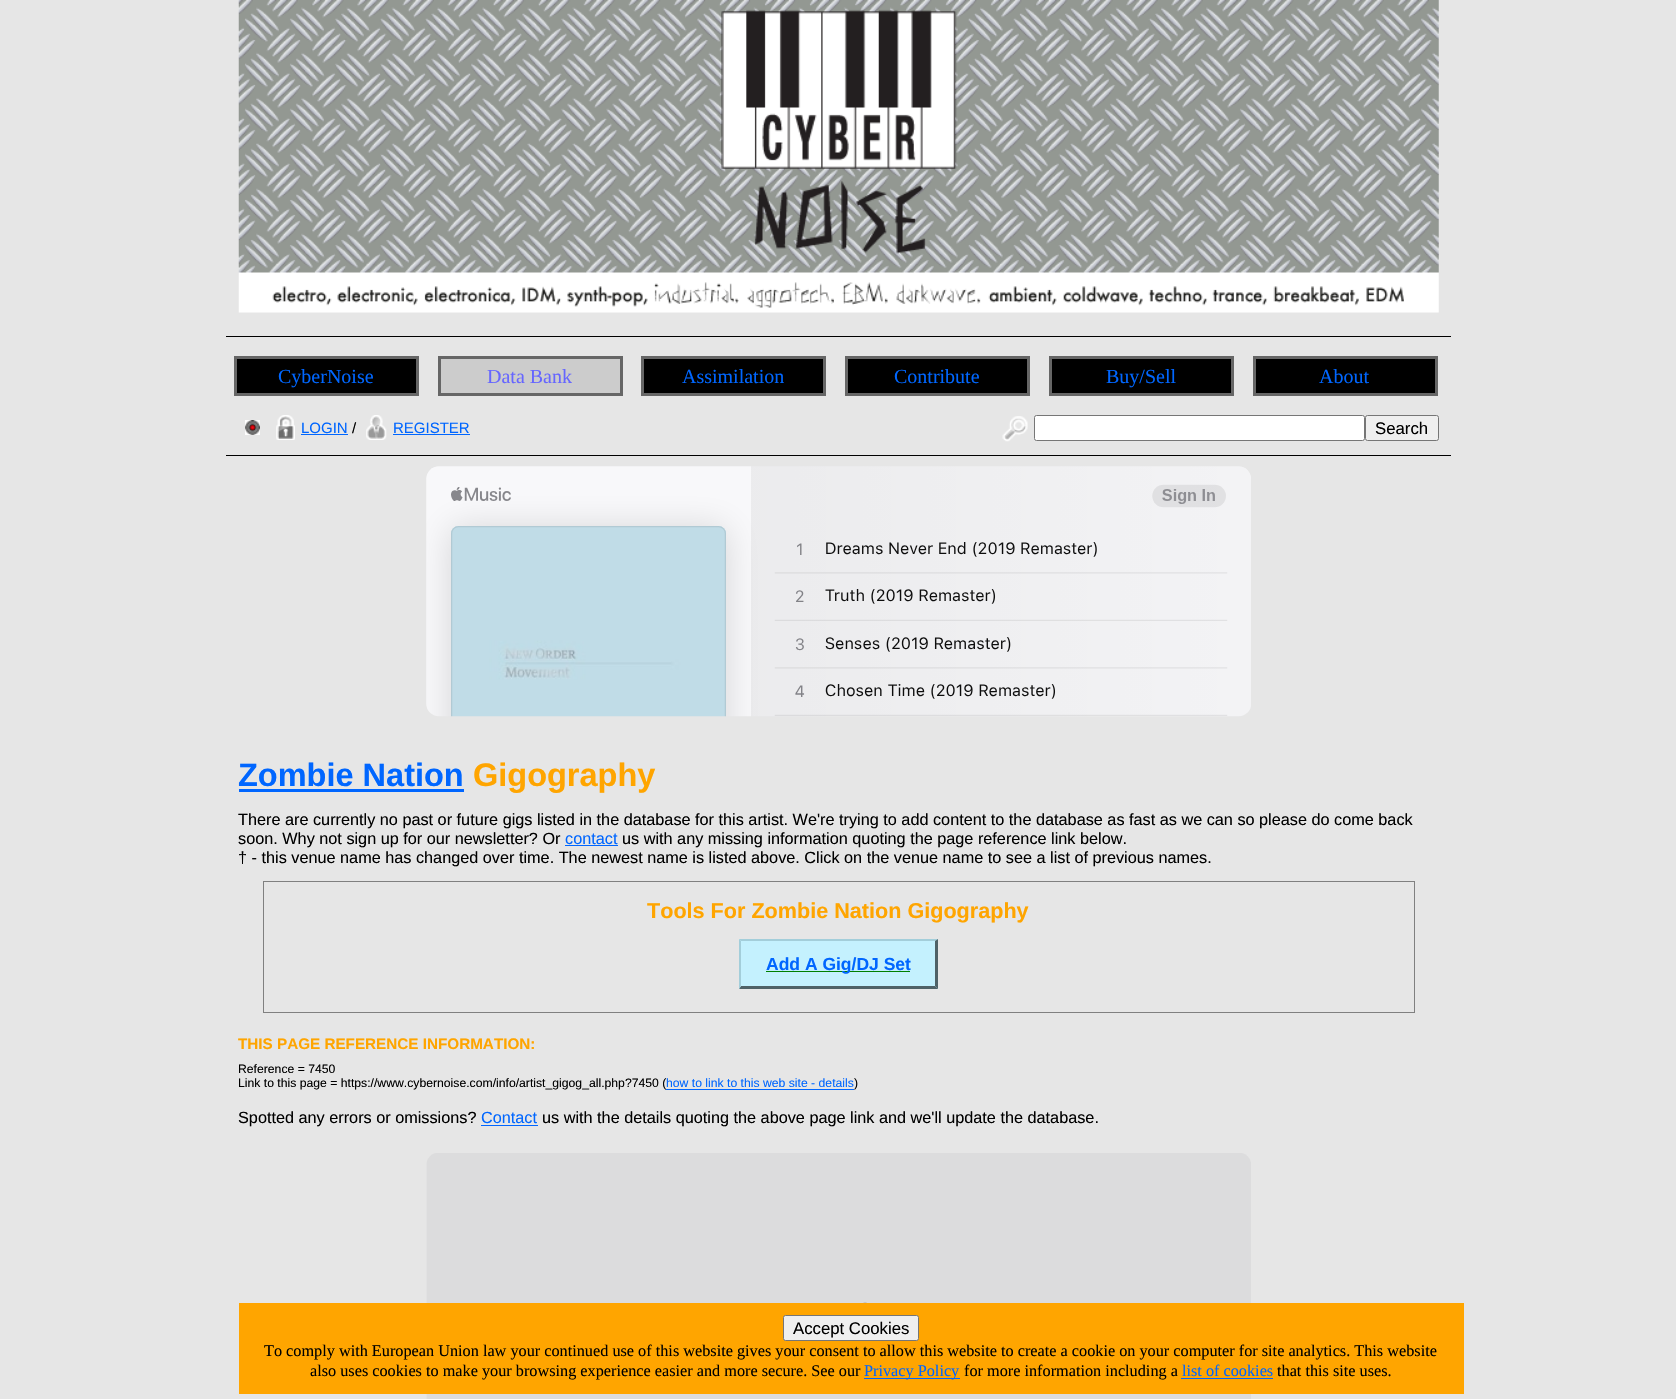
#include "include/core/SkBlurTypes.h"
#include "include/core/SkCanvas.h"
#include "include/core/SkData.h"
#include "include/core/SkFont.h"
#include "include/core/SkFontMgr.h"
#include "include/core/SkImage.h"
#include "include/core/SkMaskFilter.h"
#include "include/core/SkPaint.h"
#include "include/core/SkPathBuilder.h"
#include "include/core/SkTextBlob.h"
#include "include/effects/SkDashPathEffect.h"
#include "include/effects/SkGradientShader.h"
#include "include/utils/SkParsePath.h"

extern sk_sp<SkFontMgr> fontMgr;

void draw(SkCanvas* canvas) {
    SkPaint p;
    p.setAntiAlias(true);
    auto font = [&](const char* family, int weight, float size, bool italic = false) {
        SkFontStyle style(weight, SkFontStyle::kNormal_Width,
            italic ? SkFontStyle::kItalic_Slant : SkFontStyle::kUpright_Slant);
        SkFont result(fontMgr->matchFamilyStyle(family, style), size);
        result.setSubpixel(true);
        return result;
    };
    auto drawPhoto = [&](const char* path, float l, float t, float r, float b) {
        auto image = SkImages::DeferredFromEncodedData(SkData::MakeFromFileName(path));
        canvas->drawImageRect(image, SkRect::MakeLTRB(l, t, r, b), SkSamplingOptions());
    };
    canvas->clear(0xFFE6E6E6);
    drawPhoto("media/1.png", 238, 0, 1439, 313);
    p.setColor(0xFF000000);
    canvas->drawRect(SkRect::MakeLTRB(226, 336, 1451, 337), p);
    canvas->drawRect(SkRect::MakeLTRB(235.5f, 357.5f, 417.5f, 394.5f), p);
    p.setStyle(SkPaint::kStroke_Style);
    p.setStrokeWidth(3);
    p.setColor(0xFF666666);
    canvas->drawRect(SkRect::MakeLTRB(235.5f, 357.5f, 417.5f, 394.5f), p);
    auto font1 = font("Liberation Serif", 400, 20);
    p.setStyle(SkPaint::kFill_Style);
    p.setColor(0xFF0066FF);
    canvas->drawString("CyberNoise", 278, 383, font1, p);
    p.setColor(0xFFCCCCCC);
    canvas->drawRect(SkRect::MakeLTRB(439.5f, 357.5f, 621.5f, 394.5f), p);
    p.setStyle(SkPaint::kStroke_Style);
    p.setColor(0xFF666666);
    canvas->drawRect(SkRect::MakeLTRB(439.5f, 357.5f, 621.5f, 394.5f), p);
    p.setStyle(SkPaint::kFill_Style);
    p.setColor(0xFF6666FF);
    canvas->drawString("Data Bank", 487, 383, font1, p);
    p.setColor(0xFF000000);
    canvas->drawRect(SkRect::MakeLTRB(642.5f, 357.5f, 824.5f, 394.5f), p);
    p.setStyle(SkPaint::kStroke_Style);
    p.setColor(0xFF666666);
    canvas->drawRect(SkRect::MakeLTRB(642.5f, 357.5f, 824.5f, 394.5f), p);
    p.setStyle(SkPaint::kFill_Style);
    p.setColor(0xFF0066FF);
    canvas->drawString("Assimilation", 682, 383, font1, p);
    p.setColor(0xFF000000);
    canvas->drawRect(SkRect::MakeLTRB(846.5f, 357.5f, 1028.5f, 394.5f), p);
    p.setStyle(SkPaint::kStroke_Style);
    p.setColor(0xFF666666);
    canvas->drawRect(SkRect::MakeLTRB(846.5f, 357.5f, 1028.5f, 394.5f), p);
    p.setStyle(SkPaint::kFill_Style);
    p.setColor(0xFF0066FF);
    canvas->drawString("Contribute", 894, 383, font1, p);
    p.setColor(0xFF000000);
    canvas->drawRect(SkRect::MakeLTRB(1050.5f, 357.5f, 1232.5f, 394.5f), p);
    p.setStyle(SkPaint::kStroke_Style);
    p.setColor(0xFF666666);
    canvas->drawRect(SkRect::MakeLTRB(1050.5f, 357.5f, 1232.5f, 394.5f), p);
    p.setStyle(SkPaint::kFill_Style);
    p.setColor(0xFF0066FF);
    canvas->drawString("Buy/Sell", 1106, 383, font1, p);
    p.setColor(0xFF000000);
    canvas->drawRect(SkRect::MakeLTRB(1254.5f, 357.5f, 1436.5f, 394.5f), p);
    p.setStyle(SkPaint::kStroke_Style);
    p.setColor(0xFF666666);
    canvas->drawRect(SkRect::MakeLTRB(1254.5f, 357.5f, 1436.5f, 394.5f), p);
    p.setStyle(SkPaint::kFill_Style);
    p.setColor(0xFF0066FF);
    canvas->drawString("About", 1319, 383, font1, p);
    drawPhoto("media/2.png", 245, 420, 260, 435);
    drawPhoto("media/3.png", 276, 415, 295, 440);
    auto font2 = font("Liberation Sans", 400, 15);
    canvas->drawString("LOGIN", 301, 433, font2, p);
    canvas->drawRect(SkRect::MakeLTRB(301, 434, 348, 435), p);
    p.setColor(0xFF000000);
    canvas->drawString("/", 352, 433, font2, p);
    drawPhoto("media/4.png", 366, 415, 387, 440);
    p.setColor(0xFF0066FF);
    canvas->drawString("REGISTER", 393, 433, font2, p);
    canvas->drawRect(SkRect::MakeLTRB(393, 434, 470, 435), p);
    drawPhoto("media/5.png", 1002, 416, 1028, 442);
    p.setColor(0xFFFFFFFF);
    canvas->drawRoundRect(SkRect::MakeLTRB(1034.5f, 415.5f, 1364.5f, 440.5f), 2, 2, p);
    p.setStyle(SkPaint::kStroke_Style);
    p.setStrokeWidth(1);
    p.setColor(0xFF767676);
    canvas->drawRoundRect(SkRect::MakeLTRB(1034.5f, 415.5f, 1364.5f, 440.5f), 2, 2, p);
    p.setStyle(SkPaint::kFill_Style);
    p.setColor(0xFFEFEFEF);
    canvas->drawRoundRect(SkRect::MakeLTRB(1365.5f, 415.5f, 1438.5f, 440.5f), 2, 2, p);
    p.setStyle(SkPaint::kStroke_Style);
    p.setColor(0xFF767676);
    canvas->drawRoundRect(SkRect::MakeLTRB(1365.5f, 415.5f, 1438.5f, 440.5f), 2, 2, p);
    auto font3 = font("Liberation Sans", 400, 16.75f);
    p.setStyle(SkPaint::kFill_Style);
    p.setColor(0xFF000000);
    canvas->drawString("Search", 1375, 434, font3, p);
    canvas->drawRect(SkRect::MakeLTRB(226, 455, 1451, 456), p);
    drawPhoto("media/6.png", 426, 466, 1251, 717);
    auto font4 = font("Liberation Sans", 700, 32.5f);
    p.setColor(0xFF0066FF);
    canvas->drawString("Zombie Nation", 238, 786, font4, p);
    canvas->drawRect(SkRect::MakeLTRB(239, 789, 464, 792), p);
    p.setColor(0xFFFFA500);
    canvas->drawString("Gigography", 473, 786, font4, p);
    auto font5 = font("Liberation Sans", 400, 16.25f);
    p.setColor(0xFF000000);
    canvas->drawString("There are currently no past or future gigs listed in the database for this artist. We're trying to add content to the database as fast as we can so please do come back", 238, 825, font5, p);
    canvas->drawString("soon. Why not sign up for our newsletter? Or", 238, 844, font5, p);
    p.setColor(0xFF0066FF);
    canvas->drawString("contact", 565, 844, font5, p);
    canvas->drawRect(SkRect::MakeLTRB(565, 845, 618, 846), p);
    p.setColor(0xFF000000);
    canvas->drawString("us with any missing information quoting the page reference link below.", 622, 844, font5, p);
    canvas->drawString("† - this venue name has changed over time. The newest name is listed above. Click on the venue name to see a list of previous names.", 238, 863, font5, p);
    p.setStyle(SkPaint::kStroke_Style);
    p.setColor(0xFF808080);
    canvas->drawRect(SkRect::MakeLTRB(263.5f, 881.5f, 1414.5f, 1012.5f), p);
    auto font6 = font("Liberation Sans", 700, 21.6f);
    p.setStyle(SkPaint::kFill_Style);
    p.setColor(0xFFFFA500);
    canvas->drawString("Tools For Zombie Nation Gigography", 647, 918, font6, p);
    p.setColor(0xFFC4F1FE);
    canvas->drawRect(SkRect::MakeLTRB(739, 939, 938, 989), p);
    p.setColor(0xFF008000);
    canvas->drawRect(SkRect::MakeLTRB(766, 971, 910, 972), p);
    auto font7 = font("Liberation Sans", 700, 17.5f);
    p.setColor(0xFF0066FF);
    canvas->drawString("Add A Gig/DJ Set", 766, 970, font7, p);
    p.setColor(0xFFA3CEDA);
    canvas->drawPath(SkPathBuilder().moveTo(739, 939).lineTo(938, 939).lineTo(935, 941).lineTo(741, 941).close().detach(), p);
    p.setColor(0xFF4F6267);
    canvas->drawPath(SkPathBuilder().moveTo(938, 939).lineTo(938, 989).lineTo(935, 986).lineTo(935, 941).close().detach(), p);
    canvas->drawPath(SkPathBuilder().moveTo(938, 989).lineTo(739, 989).lineTo(741, 986).lineTo(935, 986).close().detach(), p);
    p.setColor(0xFFA3CEDA);
    canvas->drawPath(SkPathBuilder().moveTo(739, 989).lineTo(739, 939).lineTo(741, 941).lineTo(741, 986).close().detach(), p);
    auto font8 = font("Liberation Sans", 700, 15.25f);
    p.setColor(0xFFFFA500);
    canvas->drawString("THIS PAGE REFERENCE INFORMATION:", 238, 1049, font8, p);
    auto font9 = font("Liberation Sans", 400, 12.2f);
    p.setColor(0xFF000000);
    canvas->drawString("Reference = 7450", 238, 1073, font9, p);
    canvas->drawString("Link to this page = https://www.cybernoise.com/info/artist_gigog_all.php?7450 (", 238, 1087, font9, p);
    p.setColor(0xFF0066FF);
    canvas->drawString("how to link to this web site - details", 666, 1087, font9, p);
    canvas->drawRect(SkRect::MakeLTRB(666, 1089, 854, 1090), p);
    p.setColor(0xFF000000);
    canvas->drawString(")", 854, 1087, font9, p);
    canvas->drawString("Spotted any errors or omissions?", 238, 1123, font5, p);
    p.setColor(0xFF0066FF);
    canvas->drawString("Contact", 481, 1123, font5, p);
    canvas->drawRect(SkRect::MakeLTRB(481, 1125, 538, 1126), p);
    p.setColor(0xFF000000);
    canvas->drawString("us with the details quoting the above page link and we'll update the database.", 542, 1123, font5, p);
    drawPhoto("media/7.png", 426, 1153, 1251, 1399);
    p.setColor(0xFFFFA500);
    canvas->drawRect(SkRect::MakeLTRB(239, 1303, 1464, 1394), p);
    p.setColor(0xFFEFEFEF);
    canvas->drawRoundRect(SkRect::MakeLTRB(783.5f, 1315.5f, 918.5f, 1340.5f), 2, 2, p);
    p.setStyle(SkPaint::kStroke_Style);
    p.setColor(0xFF767676);
    canvas->drawRoundRect(SkRect::MakeLTRB(783.5f, 1315.5f, 918.5f, 1340.5f), 2, 2, p);
    p.setStyle(SkPaint::kFill_Style);
    p.setColor(0xFF000000);
    canvas->drawString("Accept Cookies", 793, 1334, font3, p);
    auto font10 = font("Liberation Serif", 400, 16.25f);
    canvas->drawString("To comply with European Union law your continued use of this website gives your consent to allow this website to create a cookie on your computer for site analytics. This website", 264, 1356, font10, p);
    canvas->drawString("also uses cookies to make your browsing experience easier and more secure. See our", 310, 1376, font10, p);
    p.setColor(0xFF0066FF);
    canvas->drawRect(SkRect::MakeLTRB(864, 1378, 960, 1379), p);
    canvas->drawString("Privacy Policy", 864, 1376, font10, p);
    p.setColor(0xFF000000);
    canvas->drawString("for more information including a", 964, 1376, font10, p);
    p.setColor(0xFF0066FF);
    canvas->drawString("list of cookies", 1182, 1376, font10, p);
    canvas->drawRect(SkRect::MakeLTRB(1181, 1378, 1273, 1379), p);
    p.setColor(0xFF000000);
    canvas->drawString("that this site uses.", 1277, 1376, font10, p);
}
